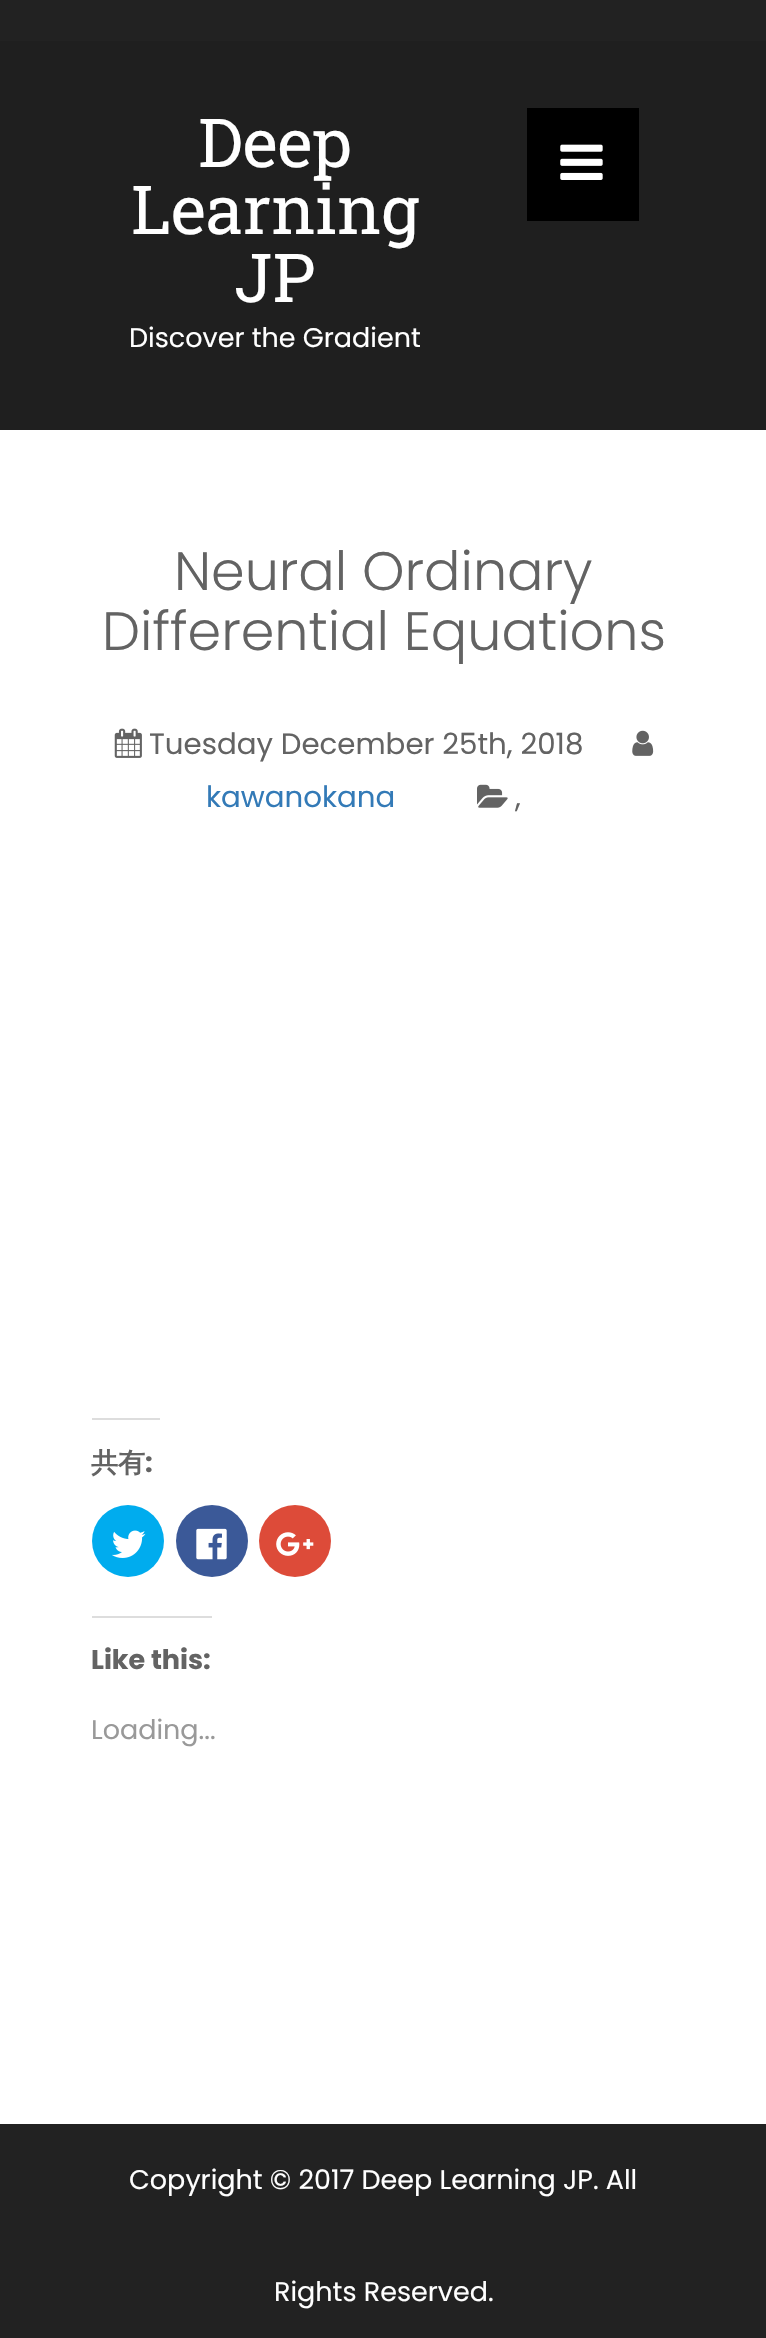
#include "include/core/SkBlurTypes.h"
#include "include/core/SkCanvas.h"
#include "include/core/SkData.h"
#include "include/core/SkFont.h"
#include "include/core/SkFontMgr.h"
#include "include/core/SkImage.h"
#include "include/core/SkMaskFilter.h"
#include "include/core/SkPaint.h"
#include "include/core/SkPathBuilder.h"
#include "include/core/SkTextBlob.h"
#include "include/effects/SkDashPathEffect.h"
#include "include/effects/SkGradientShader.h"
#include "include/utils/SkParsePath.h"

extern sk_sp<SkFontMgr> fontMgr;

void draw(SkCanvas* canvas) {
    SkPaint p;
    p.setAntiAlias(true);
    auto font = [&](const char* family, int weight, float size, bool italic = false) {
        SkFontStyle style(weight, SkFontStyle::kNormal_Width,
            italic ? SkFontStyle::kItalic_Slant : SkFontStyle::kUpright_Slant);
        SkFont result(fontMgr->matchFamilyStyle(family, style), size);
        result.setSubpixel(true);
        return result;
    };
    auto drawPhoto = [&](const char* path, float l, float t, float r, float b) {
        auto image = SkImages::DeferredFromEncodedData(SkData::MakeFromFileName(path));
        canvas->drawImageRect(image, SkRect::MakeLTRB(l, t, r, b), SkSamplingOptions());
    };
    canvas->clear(0xFFFFFFFF);
    p.setColor(0xFF222222);
    canvas->drawRect(SkRect::MakeLTRB(0, 0, 766, 41), p);
    p.setColor(0xFF1F1F1F);
    canvas->drawRect(SkRect::MakeLTRB(0, 41, 766, 430), p);
    auto font1 = font("Roboto Slab", 400, 67.5f);
    p.setColor(0xFFFFFFFF);
    {
        const struct { const char* s; float x, y; } items[] = {
            {"Deep", 198, 167},
            {"Learning", 131, 234},
            {"JP", 234, 302},
        };
        for (auto [s, x, y] : items) {
            canvas->drawString(s, x, y, font1, p);
        }
    }
    auto font2 = font("Poppins", 400, 27);
    canvas->drawString("Discover the Gradient", 129, 347, font2, p);
    p.setColor(0xFF000000);
    canvas->drawRect(SkRect::MakeLTRB(527, 108, 639, 221), p);
    drawPhoto("media/1.png", 560, 144, 603, 180);
    auto font3 = font("Poppins", 300, 54);
    p.setColor(0xFF636363);
    canvas->drawString("Neural Ordinary", 174, 590, font3, p);
    canvas->drawString("Differential Equations", 102, 650, font3, p);
    drawPhoto("media/2.png", 114, 728, 142, 758);
    auto font4 = font("Poppins", 400, 29.25f);
    canvas->drawString("Tuesday December 25th, 2018", 149, 754, font4, p);
    drawPhoto("media/3.png", 632, 730, 654, 756);
    p.setColor(0xFF337AB7);
    canvas->drawString("kawanokana", 206, 807, font4, p);
    drawPhoto("media/4.png", 477, 784, 508, 808);
    p.setColor(0xFF636363);
    canvas->drawString(",", 515, 807, font4, p);
    p.setColor(0xFFDDDDDD);
    canvas->drawRect(SkRect::MakeLTRB(92, 1418, 160, 1420), p);
    auto font5 = font("WenQuanYi Zen Hei", 700, 27);
    p.setColor(0xFF636363);
    canvas->drawString("共有", 91, 1472, font5, p);
    auto font6 = font("Poppins", 700, 27);
    canvas->drawString(":", 145, 1472, font6, p);
    p.setColor(0xFF00ACEE);
    canvas->drawCircle(128, 1541, 36, p);
    drawPhoto("media/5.png", 112, 1530, 146, 1558);
    p.setColor(0xFF3B5998);
    canvas->drawCircle(212, 1541, 36, p);
    drawPhoto("media/6.png", 196, 1528, 227, 1560);
    p.setColor(0xFFDD4B39);
    canvas->drawCircle(295, 1541, 36, p);
    drawPhoto("media/7.png", 276, 1532, 314, 1556);
    p.setColor(0xFFDDDDDD);
    canvas->drawRect(SkRect::MakeLTRB(92, 1616, 212, 1618), p);
    p.setColor(0xFF636363);
    canvas->drawString("Like this:", 91, 1669, font6, p);
    p.setColor(0xFF999999);
    canvas->drawString("Loading...", 91, 1739, font2, p);
    p.setColor(0xFF222222);
    canvas->drawRect(SkRect::MakeLTRB(0, 2124, 766, 2338), p);
    p.setColor(0xFFFFFFFF);
    canvas->drawString("Copyright © 2017 Deep Learning JP. All", 129, 2189, font2, p);
    canvas->drawString("Rights Reserved.", 274, 2301, font2, p);
}
